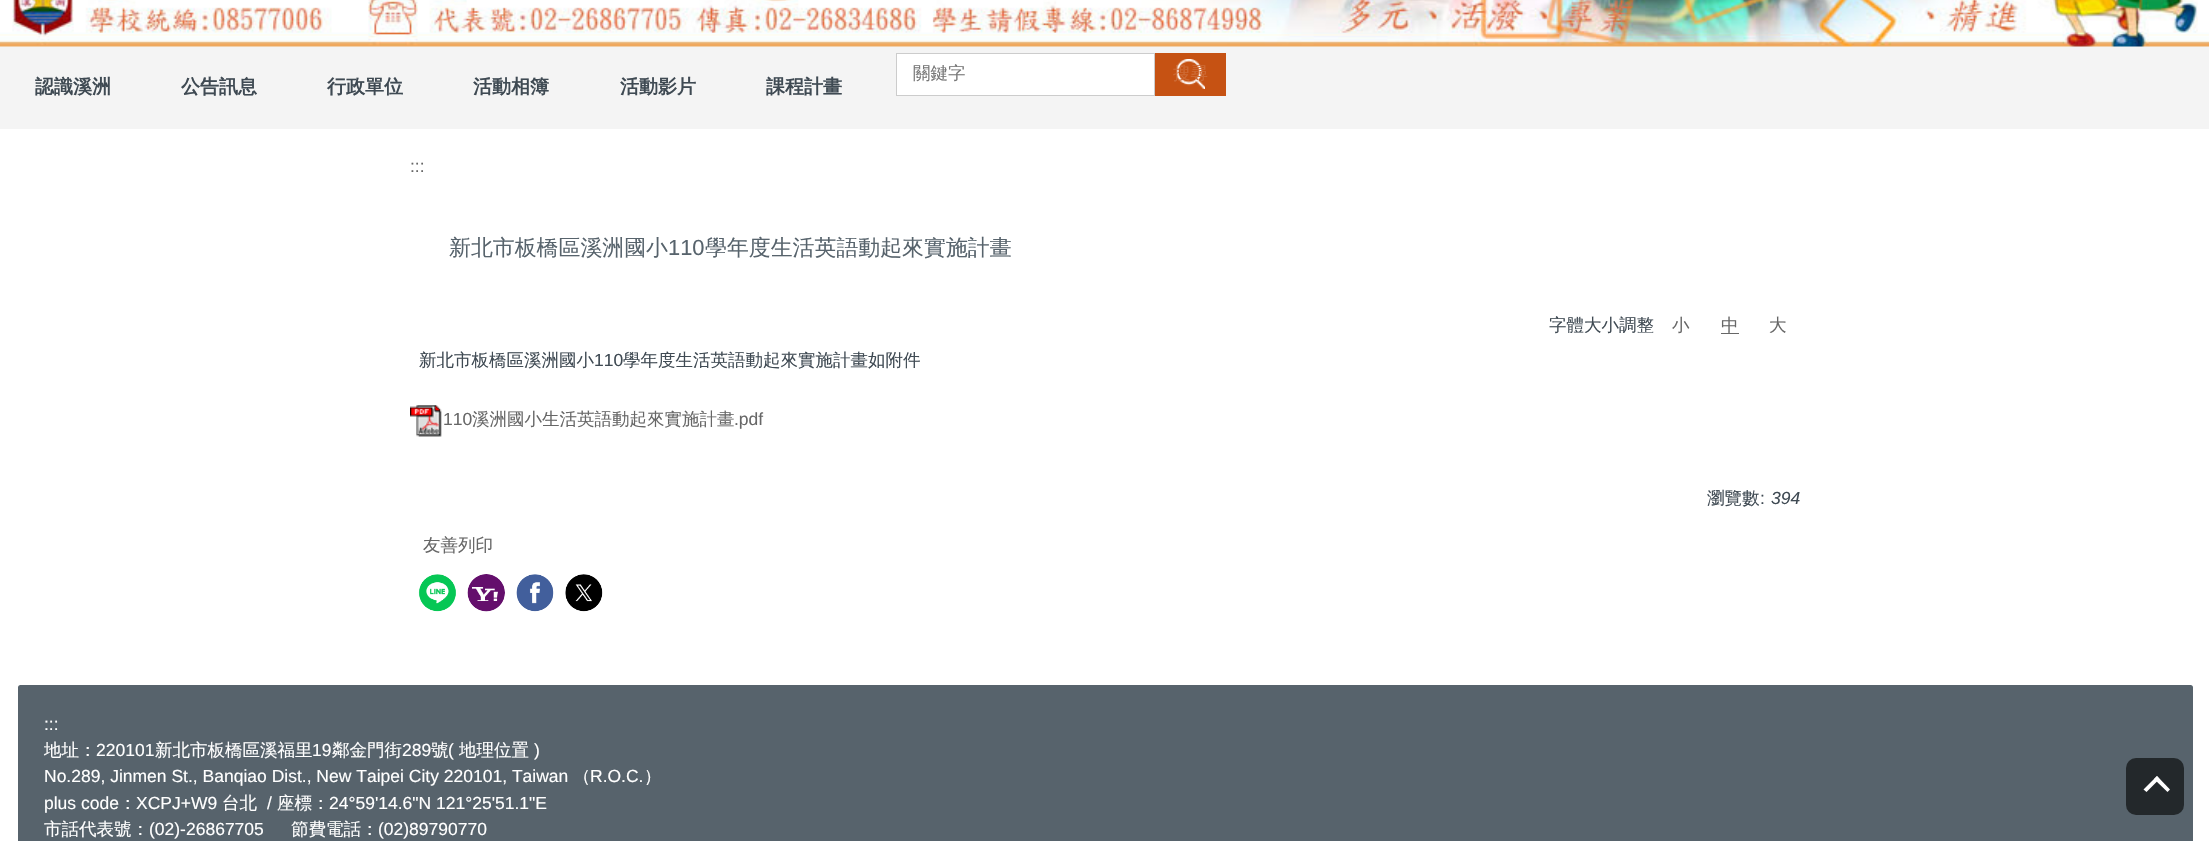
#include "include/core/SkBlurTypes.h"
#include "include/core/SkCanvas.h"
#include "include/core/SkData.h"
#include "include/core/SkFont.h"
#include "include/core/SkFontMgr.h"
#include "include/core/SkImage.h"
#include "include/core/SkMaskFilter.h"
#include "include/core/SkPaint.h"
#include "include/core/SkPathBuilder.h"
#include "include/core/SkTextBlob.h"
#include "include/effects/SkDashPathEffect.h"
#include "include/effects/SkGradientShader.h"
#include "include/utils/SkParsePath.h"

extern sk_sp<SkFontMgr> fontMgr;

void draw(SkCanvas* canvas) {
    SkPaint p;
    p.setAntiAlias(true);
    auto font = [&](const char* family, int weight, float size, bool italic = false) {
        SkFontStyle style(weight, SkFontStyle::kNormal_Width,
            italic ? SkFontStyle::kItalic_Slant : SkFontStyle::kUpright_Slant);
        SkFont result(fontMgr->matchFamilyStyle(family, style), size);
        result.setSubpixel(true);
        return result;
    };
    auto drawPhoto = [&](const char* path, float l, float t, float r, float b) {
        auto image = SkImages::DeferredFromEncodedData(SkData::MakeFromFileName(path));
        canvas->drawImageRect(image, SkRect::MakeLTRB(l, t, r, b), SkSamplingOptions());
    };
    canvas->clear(0xFFFFFFFF);
    p.setColor(0xFFF4F4F4);
    canvas->drawRect(SkRect::MakeLTRB(0, 46, 2209, 129), p);
    drawPhoto("media/1.png", 0, 0, 2209, 47);
    p.setColor(0xFFFFFFFF);
    canvas->drawRect(SkRect::MakeLTRB(896.5f, 53.5f, 1154.5f, 95.5f), p);
    p.setStyle(SkPaint::kStroke_Style);
    p.setStrokeWidth(1);
    p.setColor(0xFFCCCCCC);
    canvas->drawRect(SkRect::MakeLTRB(896.5f, 53.5f, 1154.5f, 95.5f), p);
    auto font1 = font("WenQuanYi Zen Hei", 500, 17.5f);
    p.setStyle(SkPaint::kFill_Style);
    p.setColor(0xFF777777);
    canvas->drawString("關鍵字", 913, 79, font1, p);
    p.setColor(0xFFC65213);
    canvas->drawRect(SkRect::MakeLTRB(1155, 53, 1226, 96), p);
    drawPhoto("media/2.png", 1176, 59, 1205, 89);
    p.setColor(0xFFCE6A34);
    canvas->drawString("搜尋", 1173, 79, font1, p);
    auto font2 = font("WenQuanYi Zen Hei", 700, 19);
    p.setColor(0xFF3F4A53);
    {
        const struct { const char* s; float x, y; } items[] = {
            {"認識溪洲", 35, 93},
            {"公告訊息", 181, 93},
            {"行政單位", 327, 93},
            {"活動相簿", 473, 93},
            {"活動影片", 620, 93},
            {"課程計畫", 766, 93},
        };
        for (auto [s, x, y] : items) {
            canvas->drawString(s, x, y, font2, p);
        }
    }
    auto font3 = font("Liberation Sans", 400, 17.5f);
    p.setColor(0xFF676767);
    canvas->drawString(":::", 410, 172, font3, p);
    auto font4 = font("WenQuanYi Zen Hei", 500, 21.9f);
    p.setColor(0xFF57636C);
    canvas->drawString("新北市板橋區溪洲國小", 449, 255, font4, p);
    auto font5 = font("Liberation Sans", 400, 21.9f);
    canvas->drawString("110", 668, 255, font5, p);
    canvas->drawString("學年度生活英語動起來實施計畫", 705, 255, font4, p);
    p.setColor(0xFF3F4A53);
    canvas->drawString("字體大小調整", 1549, 331, font1, p);
    p.setColor(0xFF676767);
    canvas->drawString("小", 1672, 331, font1, p);
    canvas->drawString("中", 1721, 331, font1, p);
    canvas->drawRect(SkRect::MakeLTRB(1721, 333, 1739, 334), p);
    canvas->drawString("大", 1769, 331, font1, p);
    p.setColor(0xFF3F4A53);
    canvas->drawString("新北市板橋區溪洲國小", 419, 366, font1, p);
    canvas->drawString("110", 594, 366, font3, p);
    canvas->drawString("學年度生活英語動起來實施計畫如附件", 623, 366, font1, p);
    drawPhoto("media/3.png", 410, 405, 442, 437);
    p.setColor(0xFF676767);
    canvas->drawString("110", 443, 425, font3, p);
    canvas->drawString("溪洲國小生活英語動起來實施計畫", 472, 425, font1, p);
    canvas->drawString(".pdf", 734, 425, font3, p);
    p.setColor(0xFF3F4A53);
    canvas->drawString("瀏覽數", 1707, 504, font1, p);
    canvas->drawString(":", 1760, 504, font3, p);
    auto font6 = font("Liberation Sans", 400, 17.5f, true);
    canvas->drawString("394", 1771, 504, font6, p);
    p.setColor(0xFF676767);
    canvas->drawString("友善列印", 423, 551, font1, p);
    drawPhoto("media/4.png", 418, 574, 456, 612);
    drawPhoto("media/5.png", 467, 574, 505, 612);
    drawPhoto("media/6.png", 516, 574, 554, 612);
    drawPhoto("media/7.png", 565, 574, 603, 612);
    p.setColor(0xFF57636C);
    canvas->drawRoundRect(SkRect::MakeLTRB(18, 685, 2193, 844), 2.5f, 2.5f, p);
    p.setColor(0xFFFFFFFF);
    canvas->drawString(":::", 44, 730, font3, p);
    canvas->drawString("地址：", 44, 756, font1, p);
    canvas->drawString("220101", 96, 756, font3, p);
    canvas->drawString("新北市板橋區溪福里", 155, 756, font1, p);
    canvas->drawString("19", 312, 756, font3, p);
    canvas->drawString("鄰金門街", 332, 756, font1, p);
    canvas->drawString("289", 402, 756, font3, p);
    canvas->drawString("號", 431, 756, font1, p);
    canvas->drawString("(", 448, 756, font3, p);
    canvas->drawString("地理位置", 459, 756, font1, p);
    canvas->drawString(")", 534, 756, font3, p);
    canvas->drawString("No.289, Jinmen St., Banqiao Dist., New Taipei City 220101, Taiwan", 44, 782, font3, p);
    canvas->drawString("（", 573, 782, font1, p);
    canvas->drawString("R.O.C.", 590, 782, font3, p);
    canvas->drawString("）", 644, 782, font1, p);
    canvas->drawString("plus code", 44, 809, font3, p);
    canvas->drawString("：", 119, 809, font1, p);
    canvas->drawString("XCPJ+W9", 136, 809, font3, p);
    canvas->drawString("台北", 222, 809, font1, p);
    canvas->drawString("/", 267, 809, font3, p);
    canvas->drawString("座標：", 277, 809, font1, p);
    canvas->drawString("24°59'14.6\"N 121°25'51.1\"E", 329, 809, font3, p);
    canvas->drawString("市話代表號：", 44, 835, font1, p);
    canvas->drawString("(02)-26867705", 149, 835, font3, p);
    canvas->drawString("節費電話：", 291, 835, font1, p);
    canvas->drawString("(02)89790770", 378, 835, font3, p);
    p.setColor(0xFF23282B);
    canvas->drawRoundRect(SkRect::MakeLTRB(2126, 758, 2184, 815), 10, 10, p);
    p.setColor(0xFFFFFFFF);
    canvas->drawPath(SkPathBuilder().moveTo(2143.5f, 789.5f).lineTo(2157, 776).lineTo(2159.5f, 779).lineTo(2146.5f, 792).close().detach(), p);
    canvas->drawPath(SkPathBuilder().moveTo(2154, 779).lineTo(2157, 776).lineTo(2170, 789.5f).lineTo(2167.5f, 792).close().detach(), p);
}
